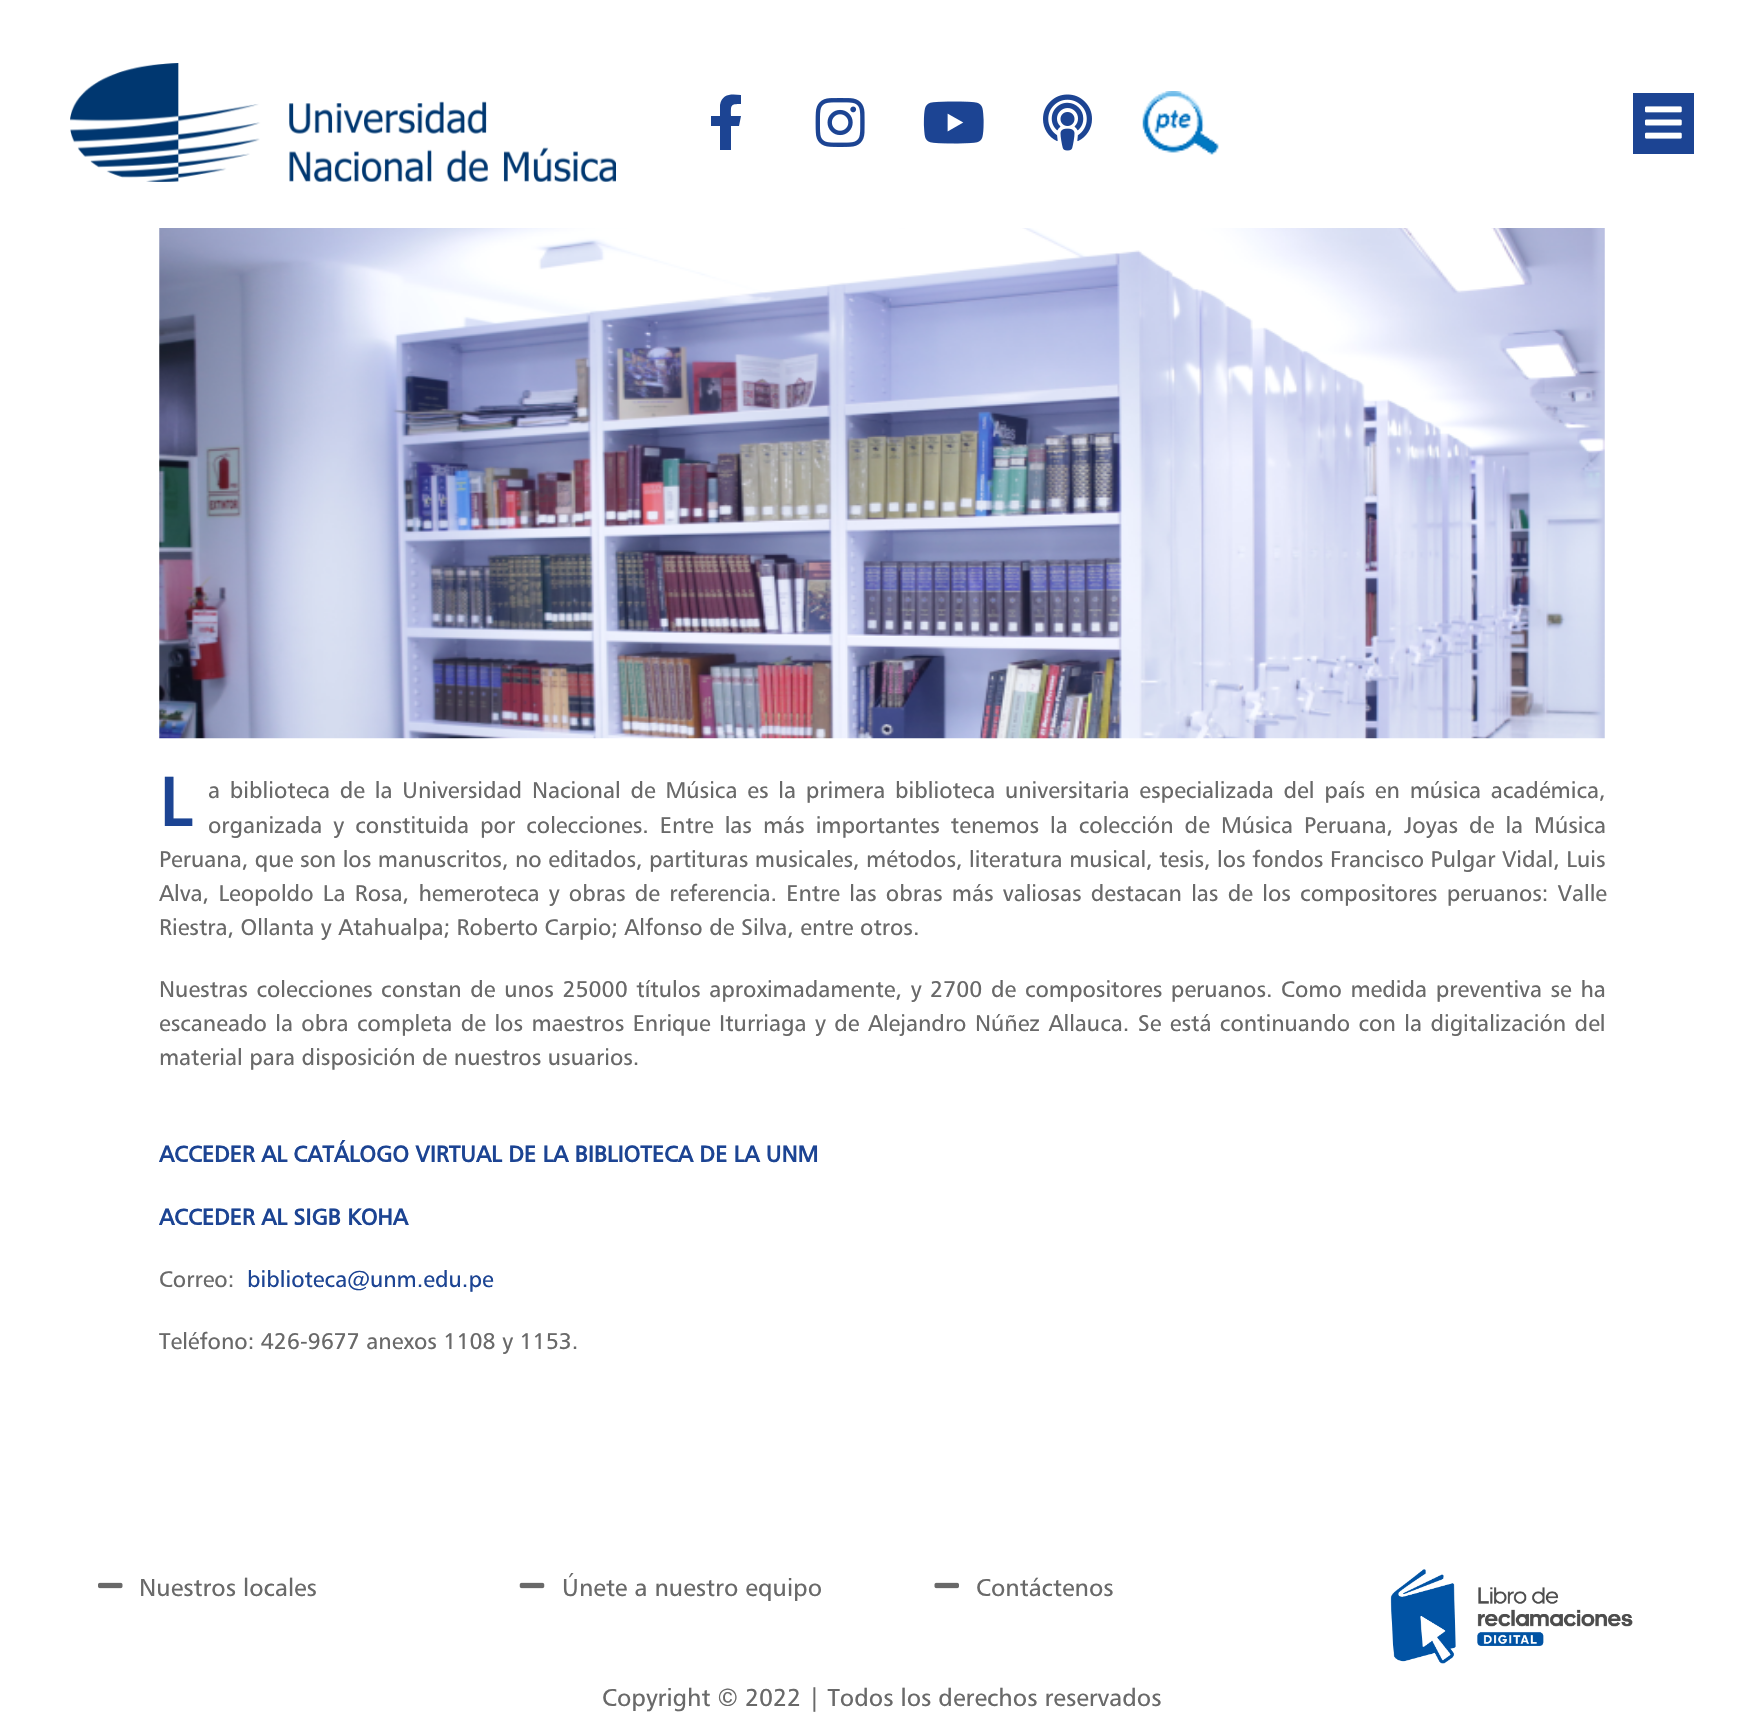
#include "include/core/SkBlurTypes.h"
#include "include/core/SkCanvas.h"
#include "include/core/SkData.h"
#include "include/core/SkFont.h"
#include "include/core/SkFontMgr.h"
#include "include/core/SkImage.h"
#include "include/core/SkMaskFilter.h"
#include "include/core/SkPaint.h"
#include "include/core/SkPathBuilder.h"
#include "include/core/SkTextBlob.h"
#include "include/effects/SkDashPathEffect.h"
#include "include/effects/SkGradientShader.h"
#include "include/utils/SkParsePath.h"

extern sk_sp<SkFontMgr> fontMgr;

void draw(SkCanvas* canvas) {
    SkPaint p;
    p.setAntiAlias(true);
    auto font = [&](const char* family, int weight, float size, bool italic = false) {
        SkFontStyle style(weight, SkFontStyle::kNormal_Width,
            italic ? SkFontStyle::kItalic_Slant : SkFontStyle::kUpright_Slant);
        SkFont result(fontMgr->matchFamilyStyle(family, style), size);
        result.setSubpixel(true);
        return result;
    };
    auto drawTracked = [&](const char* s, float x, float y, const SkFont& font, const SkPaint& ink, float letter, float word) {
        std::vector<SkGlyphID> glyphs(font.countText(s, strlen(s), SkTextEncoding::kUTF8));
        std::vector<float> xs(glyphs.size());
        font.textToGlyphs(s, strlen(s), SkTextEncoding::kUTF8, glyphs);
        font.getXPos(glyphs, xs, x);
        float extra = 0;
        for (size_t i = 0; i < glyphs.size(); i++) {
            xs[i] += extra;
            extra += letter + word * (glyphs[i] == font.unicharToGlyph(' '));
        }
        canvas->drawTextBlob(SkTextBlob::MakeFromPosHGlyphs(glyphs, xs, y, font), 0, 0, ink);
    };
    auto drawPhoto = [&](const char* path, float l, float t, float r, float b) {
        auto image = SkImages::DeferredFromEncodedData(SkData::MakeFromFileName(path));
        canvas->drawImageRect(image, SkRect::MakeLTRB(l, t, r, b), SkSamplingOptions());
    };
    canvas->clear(0xFFFFFFFF);
    drawPhoto("media/1.png", 70, 63, 616, 182);
    p.setColor(0xFF1C4493);
    canvas->drawPath(SkPathBuilder().moveTo(739, 126).lineTo(731, 126).lineTo(731, 150).lineTo(720, 150).lineTo(720, 126).lineTo(711, 126).lineTo(711, 116).lineTo(720, 116).lineTo(720, 105).cubicTo(722, 93, 732, 94, 741, 95).lineTo(741, 104).cubicTo(730, 104, 731, 105, 731, 116).lineTo(741, 116).close().detach(), p);
    drawPhoto("media/2.png", 815, 98, 865, 147);
    drawPhoto("media/3.png", 923, 101, 984, 144);
    drawPhoto("media/4.png", 1043, 94, 1092, 151);
    drawPhoto("media/5.png", 1142, 91, 1219, 155);
    canvas->drawRect(SkRect::MakeLTRB(1633, 93, 1694, 154), p);
    drawPhoto("media/6.png", 1645, 106, 1682, 139);
    drawPhoto("media/7.png", 159, 228, 1605, 739);
    auto font1 = font("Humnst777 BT", 700, 68);
    canvas->drawString("L", 159, 826, font1, p);
    auto font2 = font("Humnst777 BT", 400, 22.75f);
    p.setColor(0xFF696969);
    drawTracked("a biblioteca de la Universidad Nacional de Música es la primera biblioteca universitaria especializada del país en música académica,", 208, 798, font2, p, 0, 3.25f);
    drawTracked("organizada y constituida por colecciones. Entre las más importantes tenemos la colección de Música Peruana, Joyas de la Música", 208, 833, font2, p, 0, 4.5f);
    canvas->drawString("Peruana, que son los manuscritos, no editados, partituras musicales, métodos, literatura musical, tesis, los fondos Francisco Pulgar Vidal, Luis", 159, 867, font2, p);
    drawTracked("Alva, Leopoldo La Rosa, hemeroteca y obras de referencia. Entre las obras más valiosas destacan las de los compositores peruanos: Valle", 159, 901, font2, p, 0, 2.75f);
    canvas->drawString("Riestra, Ollanta y Atahualpa; Roberto Carpio; Alfonso de Silva, entre otros.", 159, 935, font2, p);
    drawTracked("Nuestras colecciones constan de unos 25000 títulos aproximadamente, y 2700 de compositores peruanos. Como medida preventiva se ha", 159, 997, font2, p, 0, 2.1f);
    drawTracked("escaneado la obra completa de los maestros Enrique Iturriaga y de Alejandro Núñez Allauca. Se está continuando con la digitalización del", 159, 1031, font2, p, 0, 1.9f);
    canvas->drawString("material para disposición de nuestros usuarios.", 159, 1065, font2, p);
    auto font3 = font("Humnst777 BT", 700, 22.75f);
    p.setColor(0xFF1C4493);
    canvas->drawString("ACCEDER AL CATÁLOGO VIRTUAL DE LA BIBLIOTECA DE LA UNM", 159, 1162, font3, p);
    canvas->drawString("ACCEDER AL SIGB KOHA", 159, 1225, font3, p);
    p.setColor(0xFF696969);
    canvas->drawString("Correo:", 159, 1287, font2, p);
    p.setColor(0xFF1C4493);
    canvas->drawString("biblioteca@unm.edu.pe", 247, 1287, font2, p);
    p.setColor(0xFF696969);
    canvas->drawString("Teléfono: 426-9677 anexos 1108 y 1153.", 159, 1349, font2, p);
    drawPhoto("media/8.png", 98, 1582, 123, 1589);
    auto font4 = font("Humnst777 BT", 400, 24.5f);
    canvas->drawString("Nuestros locales", 139, 1596, font4, p);
    drawPhoto("media/9.png", 519, 1582, 545, 1589);
    canvas->drawString("Únete a nuestro equipo", 562, 1596, font4, p);
    drawPhoto("media/10.png", 934, 1582, 959, 1589);
    canvas->drawString("Contáctenos", 976, 1596, font4, p);
    drawPhoto("media/11.png", 1390, 1569, 1633, 1664);
    canvas->drawString("Copyright © 2022 | Todos los derechos reservados", 602, 1706, font4, p);
}
